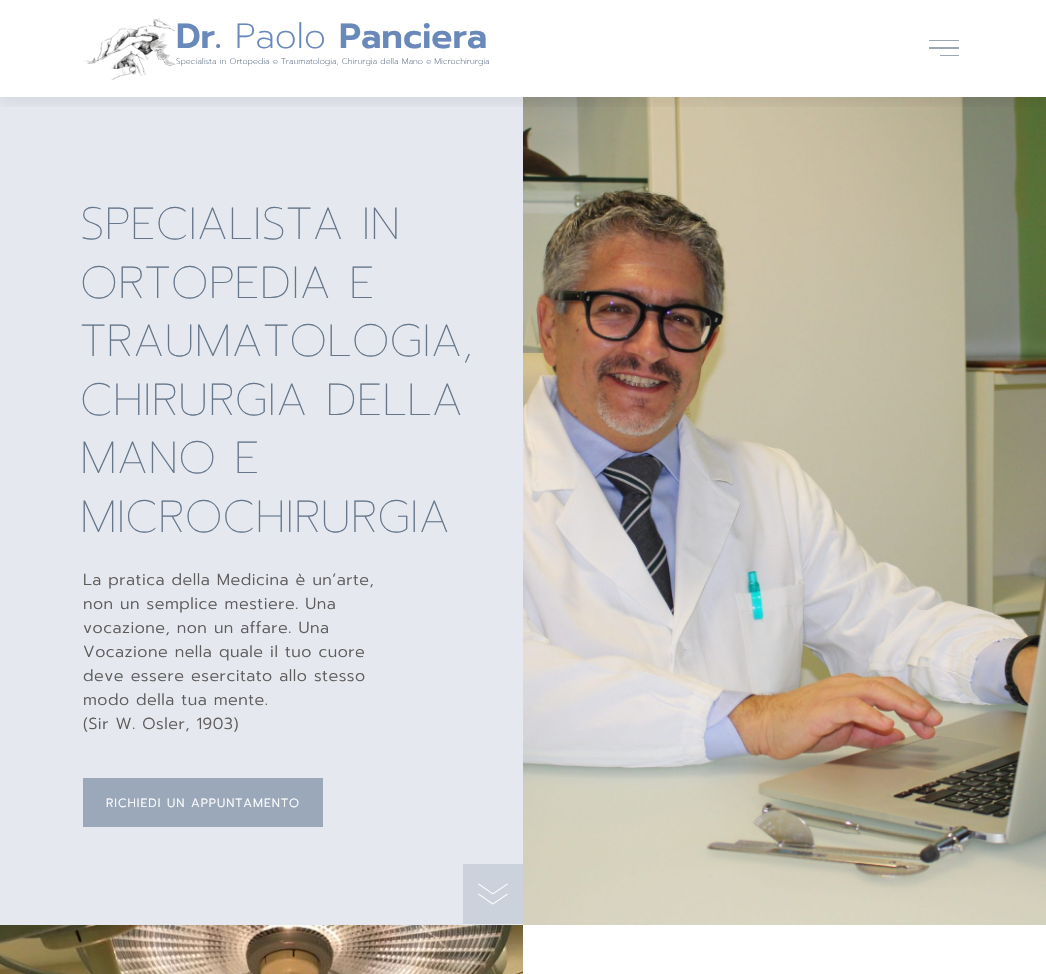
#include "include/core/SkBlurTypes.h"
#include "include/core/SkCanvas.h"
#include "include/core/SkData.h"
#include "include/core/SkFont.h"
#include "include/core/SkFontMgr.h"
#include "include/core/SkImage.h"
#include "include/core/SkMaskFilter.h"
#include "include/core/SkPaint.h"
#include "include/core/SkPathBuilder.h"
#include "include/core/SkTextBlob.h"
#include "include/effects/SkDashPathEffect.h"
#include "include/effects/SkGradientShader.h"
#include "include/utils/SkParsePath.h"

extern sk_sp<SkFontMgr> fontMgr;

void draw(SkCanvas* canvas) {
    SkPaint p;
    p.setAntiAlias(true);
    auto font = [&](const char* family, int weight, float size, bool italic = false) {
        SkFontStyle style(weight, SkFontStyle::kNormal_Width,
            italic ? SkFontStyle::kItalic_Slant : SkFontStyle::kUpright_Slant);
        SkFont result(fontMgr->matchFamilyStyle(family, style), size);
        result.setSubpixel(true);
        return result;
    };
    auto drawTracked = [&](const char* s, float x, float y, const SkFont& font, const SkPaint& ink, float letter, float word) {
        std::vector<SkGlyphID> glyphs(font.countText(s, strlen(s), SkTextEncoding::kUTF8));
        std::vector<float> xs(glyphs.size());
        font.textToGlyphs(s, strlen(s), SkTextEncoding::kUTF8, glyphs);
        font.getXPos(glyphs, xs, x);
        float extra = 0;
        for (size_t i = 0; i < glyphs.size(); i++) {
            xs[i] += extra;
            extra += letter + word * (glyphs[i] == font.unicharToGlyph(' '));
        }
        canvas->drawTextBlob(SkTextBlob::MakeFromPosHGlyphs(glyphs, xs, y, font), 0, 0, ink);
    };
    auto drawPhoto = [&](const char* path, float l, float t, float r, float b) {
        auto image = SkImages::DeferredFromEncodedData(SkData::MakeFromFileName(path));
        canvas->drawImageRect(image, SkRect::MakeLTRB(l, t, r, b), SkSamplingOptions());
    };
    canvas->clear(0xFFE5E9EF);
    p.setColor(0xFFFFFFFF);
    canvas->drawRect(SkRect::MakeLTRB(0, 0, 1046, 97), p);
    drawPhoto("media/3.png", 523, 97, 1046, 925);
    canvas->save();
    canvas->clipRect(SkRect::MakeLTRB(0, 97, 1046, 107));
    p.setColor(0x0D000000);
    p.setMaskFilter(SkMaskFilter::MakeBlur(kNormal_SkBlurStyle, 5));
    canvas->drawRect(SkRect::MakeLTRB(0, 9, 1046, 106), p);
    p.setMaskFilter(nullptr);
    canvas->restore();
    drawPhoto("media/1.png", 84, 18, 176, 80);
    auto font1 = font("Prompt", 600, 35);
    p.setColor(0xFF6889BA);
    canvas->drawString("Dr.", 176, 48, font1, p);
    auto font2 = font("Prompt", 200, 35);
    canvas->drawString("Paolo", 235, 48, font2, p);
    canvas->drawString("Panciera", 339, 48, font1, p);
    auto font3 = font("Prompt", 200, 8.2f);
    p.setColor(0xFF65768B);
    canvas->drawString("Specialista in Ortopedia e Traumatologia, Chirurgia della Mano e Microchirurgia", 176, 64, font3, p);
    {
        const struct { float l, t, r, b; SkColor color; } items[] = {
            {929, 47, 959, 49, 0xFF9CA7B5},
            {929, 40, 959, 41, 0xFF9CA7B5},
            {940, 55, 959, 56, 0xFF9CA7B5},
        };
        for (auto [l, t, r, b, color] : items) {
            p.setColor(color);
            canvas->drawRect(SkRect::MakeLTRB(l, t, r, b), p);
        }
    }
    auto font4 = font("Prompt", 100, 45);
    p.setColor(0xFF65768B);
    {
        const struct { const char* s; float x, y; } items[] = {
            {"SPECIALISTA IN", 80, 239},
            {"ORTOPEDIA E", 80, 298},
            {"TRAUMATOLOGIA,", 80, 356},
            {"CHIRURGIA DELLA", 80, 415},
            {"MANO E", 80, 473},
            {"MICROCHIRURGIA", 80, 532},
        };
        for (auto [s, x, y] : items) {
            canvas->drawString(s, x, y, font4, p);
        }
    }
    auto font5 = font("Prompt", 300, 16);
    p.setColor(0xFF5F5B5B);
    {
        const struct { const char* s; float x, y; } items[] = {
            {"La pratica della Medicina è un’arte,", 83, 585},
            {"non un semplice mestiere. Una", 83, 609},
            {"vocazione, non un affare. Una", 83, 633},
            {"Vocazione nella quale il tuo cuore", 83, 657},
            {"deve essere esercitato allo stesso", 83, 681},
            {"modo della tua mente.", 83, 705},
            {"(Sir W. Osler, 1903)", 83, 729},
        };
        for (auto [s, x, y] : items) {
            drawTracked(s, x, y, font5, p, 0.5f, 0);
        }
    }
    p.setColor(0xFF9AA8BA);
    canvas->drawRect(SkRect::MakeLTRB(83, 778, 323, 827), p);
    auto font6 = font("Prompt", 300, 12);
    p.setColor(0xFFFFFFFF);
    drawTracked("RICHIEDI UN APPUNTAMENTO", 106, 807, font6, p, 1, 0);
    p.setColor(0xFFCBD2DB);
    canvas->drawRect(SkRect::MakeLTRB(463, 864, 523, 924), p);
    drawPhoto("media/2.png", 478, 883, 508, 905);
    drawPhoto("media/4.png", 0, 925, 523, 974);
    p.setColor(0xFFFFFFFF);
    canvas->drawRect(SkRect::MakeLTRB(523, 925, 1046, 974), p);
}
